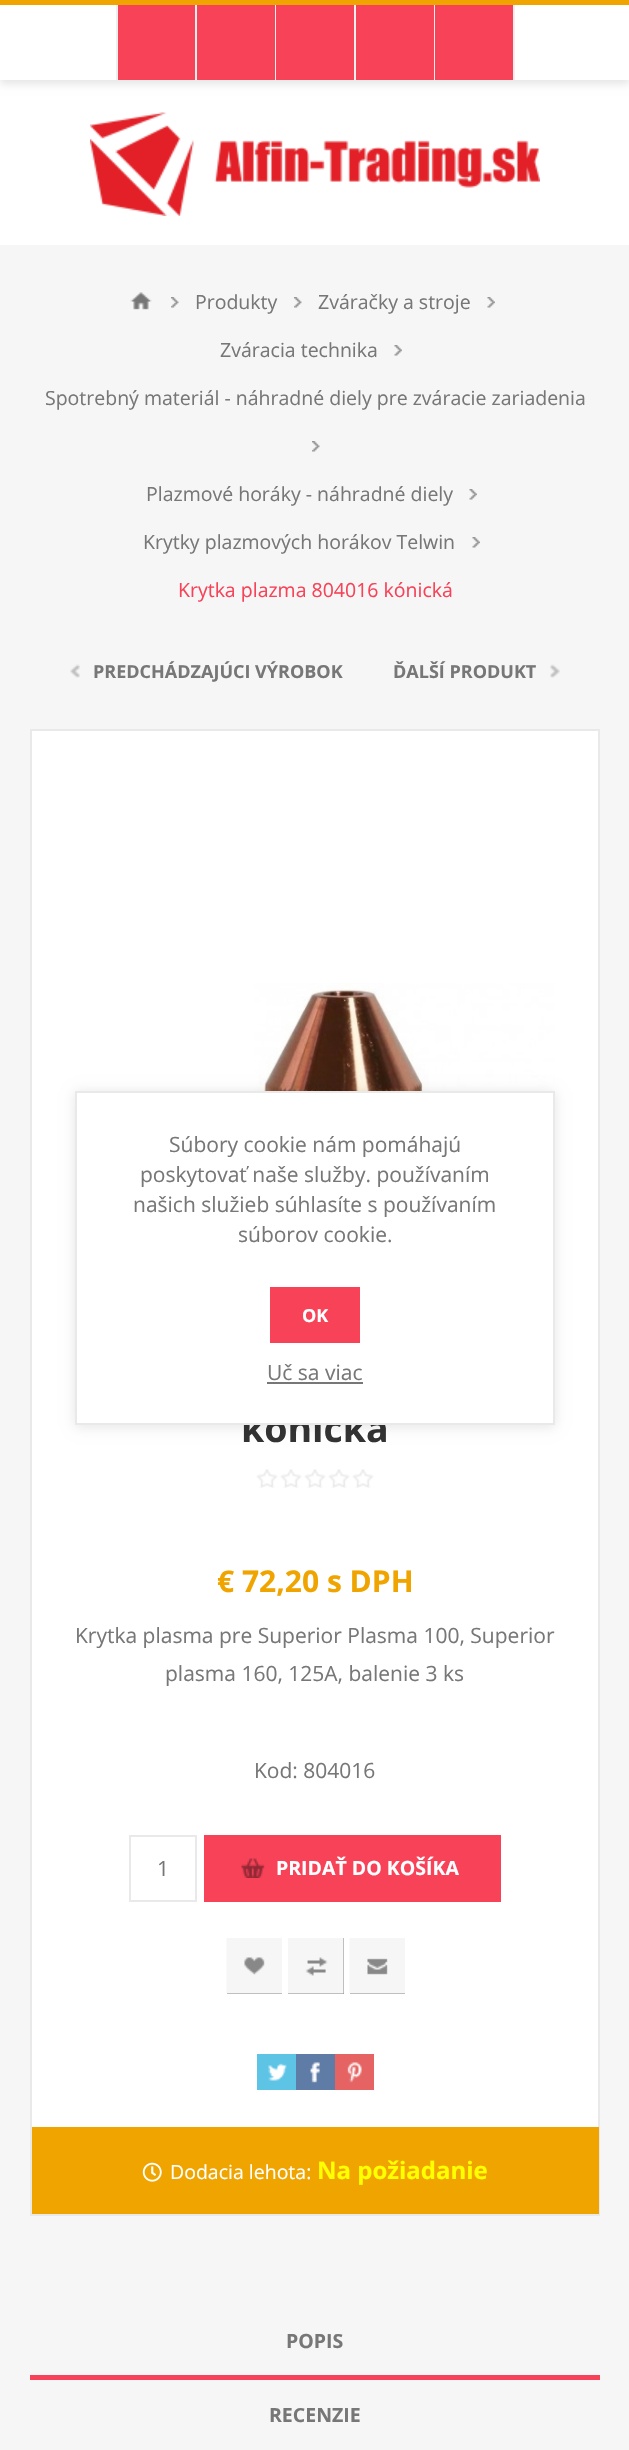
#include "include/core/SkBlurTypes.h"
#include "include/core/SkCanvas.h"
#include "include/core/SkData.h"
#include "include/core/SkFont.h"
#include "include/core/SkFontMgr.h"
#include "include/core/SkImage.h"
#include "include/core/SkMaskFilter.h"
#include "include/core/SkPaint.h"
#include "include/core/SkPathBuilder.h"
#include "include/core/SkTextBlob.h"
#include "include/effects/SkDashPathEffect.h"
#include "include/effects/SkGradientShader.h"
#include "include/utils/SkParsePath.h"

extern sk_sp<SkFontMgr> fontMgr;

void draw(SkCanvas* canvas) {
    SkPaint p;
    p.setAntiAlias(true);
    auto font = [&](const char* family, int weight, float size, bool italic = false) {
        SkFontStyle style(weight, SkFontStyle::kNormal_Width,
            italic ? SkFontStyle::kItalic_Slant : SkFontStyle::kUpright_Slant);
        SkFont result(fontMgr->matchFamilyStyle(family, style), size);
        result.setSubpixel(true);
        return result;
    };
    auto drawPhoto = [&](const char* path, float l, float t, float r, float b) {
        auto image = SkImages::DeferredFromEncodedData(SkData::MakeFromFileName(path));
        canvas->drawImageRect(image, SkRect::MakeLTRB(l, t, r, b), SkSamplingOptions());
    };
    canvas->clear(0xFFF6F6F6);
    p.setColor(0xFFFFFFFF);
    canvas->drawRect(SkRect::MakeLTRB(0, 80, 629, 245), p);
    p.setColor(0x1A000000);
    p.setMaskFilter(SkMaskFilter::MakeBlur(kNormal_SkBlurStyle, 4));
    canvas->drawRect(SkRect::MakeLTRB(0, 5, 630, 84), p);
    p.setMaskFilter(nullptr);
    {
        const struct { float l, t, r, b; SkColor color; } items[] = {
            {0, 5, 629, 80, 0xFFFFFFFF},
            {0, 0, 629, 5, 0xFFF0A400},
            {118, 5, 195, 80, 0xFFF74258},
            {195, 5, 197, 80, 0xFFEEEEEE},
            {116, 5, 118, 80, 0xFFEEEEEE},
            {197, 5, 275, 80, 0xFFF74258},
            {275, 5, 276, 80, 0xFFEEEEEE},
            {276, 5, 354, 80, 0xFFF74258},
            {354, 5, 356, 80, 0xFFEEEEEE},
            {356, 5, 434, 80, 0xFFF74258},
            {434, 5, 435, 80, 0xFFEEEEEE},
            {435, 5, 513, 80, 0xFFF74258},
            {513, 5, 515, 80, 0xFFEEEEEE},
        };
        for (auto [l, t, r, b, color] : items) {
            p.setColor(color);
            canvas->drawRect(SkRect::MakeLTRB(l, t, r, b), p);
        }
    }
    drawPhoto("media/1.png", 90, 112, 540, 216);
    drawPhoto("media/2.png", 130, 292, 152, 310);
    drawPhoto("media/3.png", 171, 297, 179, 308);
    auto font1 = font("Open Sans", 400, 19.5f);
    p.setColor(0xFF777777);
    canvas->drawString("Produkty", 195, 309, font1, p);
    drawPhoto("media/4.png", 294, 297, 302, 308);
    canvas->drawString("Zváračky a stroje", 318, 309, font1, p);
    drawPhoto("media/5.png", 487, 297, 495, 308);
    canvas->drawString("Zváracia technika", 220, 357, font1, p);
    drawPhoto("media/6.png", 394, 345, 402, 356);
    canvas->drawString("Spotrebný materiál - náhradné diely pre zváracie zariadenia", 45, 405, font1, p);
    drawPhoto("media/4.png", 312, 441, 320, 452);
    canvas->drawString("Plazmové horáky - náhradné diely", 146, 501, font1, p);
    drawPhoto("media/5.png", 469, 489, 477, 500);
    canvas->drawString("Krytky plazmových horákov Telwin", 143, 549, font1, p);
    drawPhoto("media/5.png", 472, 537, 480, 548);
    p.setColor(0xFFF74258);
    canvas->drawString("Krytka plazma 804016 kónická", 178, 597, font1, p);
    drawPhoto("media/7.png", 70, 664, 80, 678);
    auto font2 = font("Open Sans", 700, 18);
    p.setColor(0xFF777777);
    canvas->drawString("PREDCHÁDZAJÚCI VÝROBOK", 93, 678, font2, p);
    canvas->drawString("ĎALŠÍ PRODUKT", 393, 678, font2, p);
    drawPhoto("media/8.png", 550, 664, 560, 678);
    p.setColor(0xFFFFFFFF);
    canvas->drawRect(SkRect::MakeLTRB(32, 731, 598, 2127), p);
    p.setStyle(SkPaint::kStroke_Style);
    p.setStrokeWidth(2);
    p.setColor(0xFFE9E9E9);
    canvas->drawRect(SkRect::MakeLTRB(31, 730, 599, 2215), p);
    drawPhoto("media/9.png", 254, 983, 555, 1091);
    auto font3 = font("Open Sans", 700, 37.5f);
    p.setStyle(SkPaint::kFill_Style);
    p.setColor(0xFF333333);
    canvas->drawString("kónická", 241, 1442, font3, p);
    drawPhoto("media/10.png", 256, 1469, 374, 1488);
    auto font4 = font("Open Sans", 700, 30);
    p.setColor(0xFFF0A400);
    canvas->drawString("€ 72,20 s DPH", 217, 1592, font4, p);
    auto font5 = font("Open Sans", 400, 21);
    p.setColor(0xFF777777);
    {
        const struct { const char* s; float x, y; } items[] = {
            {"Krytka plasma pre Superior Plasma 100, Superior", 75, 1643},
            {"plasma 160, 125A, balenie 3 ks", 165, 1681},
            {"Kod: 804016", 254, 1778},
        };
        for (auto [s, x, y] : items) {
            canvas->drawString(s, x, y, font5, p);
        }
    }
    p.setStyle(SkPaint::kStroke_Style);
    p.setColor(0xFFE9E9E9);
    canvas->drawRect(SkRect::MakeLTRB(130, 1836, 196, 1901), p);
    p.setStyle(SkPaint::kFill_Style);
    p.setColor(0xFF777777);
    canvas->drawString("1", 157, 1876, font5, p);
    p.setColor(0xFFF74258);
    canvas->drawRect(SkRect::MakeLTRB(204, 1835, 501, 1902), p);
    drawPhoto("media/11.png", 241, 1858, 265, 1878);
    auto font6 = font("Open Sans", 700, 19.5f);
    p.setColor(0xFFFFFFFF);
    canvas->drawString("PRIDAŤ DO KOŠÍKA", 276, 1875, font6, p);
    p.setColor(0xFF888888);
    canvas->drawRect(SkRect::MakeLTRB(227, 1957, 282, 1994), p);
    drawPhoto("media/12.png", 226, 1938, 282, 1994);
    canvas->drawRect(SkRect::MakeLTRB(288, 1938, 344, 1994), p);
    drawPhoto("media/13.png", 288, 1938, 344, 1994);
    canvas->drawRect(SkRect::MakeLTRB(350, 1958, 405, 1994), p);
    drawPhoto("media/14.png", 349, 1938, 405, 1994);
    p.setColor(0xFF5DC4E6);
    canvas->drawRect(SkRect::MakeLTRB(257, 2054, 296, 2090), p);
    drawPhoto("media/15.png", 268, 2063, 287, 2081);
    p.setColor(0xFF5F7CA7);
    canvas->drawRect(SkRect::MakeLTRB(296, 2054, 335, 2090), p);
    drawPhoto("media/16.png", 310, 2062, 320, 2083);
    p.setColor(0xFFE56363);
    canvas->drawRect(SkRect::MakeLTRB(335, 2054, 374, 2090), p);
    drawPhoto("media/17.png", 347, 2062, 362, 2083);
    p.setColor(0xFFF0A400);
    canvas->drawRect(SkRect::MakeLTRB(32, 2127, 599, 2214), p);
    drawPhoto("media/18.png", 142, 2162, 162, 2182);
    p.setColor(0xFFFFFFFF);
    canvas->drawString("Dodacia lehota:", 170, 2179, font1, p);
    auto font7 = font("Open Sans", 700, 24);
    p.setColor(0xFFFFFF00);
    canvas->drawString("Na požiadanie", 317, 2179, font7, p);
    p.setColor(0xFF777777);
    canvas->drawString("POPIS", 286, 2348, font6, p);
    p.setColor(0xFFF74258);
    canvas->drawRect(SkRect::MakeLTRB(30, 2375, 600, 2380), p);
    p.setColor(0xFF777777);
    canvas->drawString("RECENZIE", 269, 2422, font6, p);
    p.setColor(0x1A000000);
    p.setMaskFilter(SkMaskFilter::MakeBlur(kNormal_SkBlurStyle, 6));
    canvas->drawRect(SkRect::MakeLTRB(75, 1092, 555, 1427), p);
    p.setMaskFilter(nullptr);
    p.setColor(0xFFFFFFFF);
    canvas->drawRect(SkRect::MakeLTRB(76, 1092, 554, 1424), p);
    p.setStyle(SkPaint::kStroke_Style);
    p.setColor(0xFFE9E9E9);
    canvas->drawRect(SkRect::MakeLTRB(76, 1092, 554, 1424), p);
    p.setStyle(SkPaint::kFill_Style);
    p.setColor(0xFF777777);
    {
        const struct { const char* s; float x, y; } items[] = {
            {"Súbory cookie nám pomáhajú", 169, 1152},
            {"poskytovať naše služby. používaním", 140, 1182},
            {"našich služieb súhlasíte s používaním", 133, 1212},
            {"súborov cookie.", 238, 1242},
        };
        for (auto [s, x, y] : items) {
            canvas->drawString(s, x, y, font5, p);
        }
    }
    p.setColor(0xFFF74258);
    canvas->drawRect(SkRect::MakeLTRB(270, 1287, 360, 1343), p);
    p.setColor(0xFFFFFFFF);
    canvas->drawString("OK", 302, 1322, font2, p);
    p.setColor(0xFF777777);
    canvas->drawString("Uč sa viac", 267, 1380, font5, p);
    canvas->drawRect(SkRect::MakeLTRB(267, 1382, 363, 1384), p);
}
